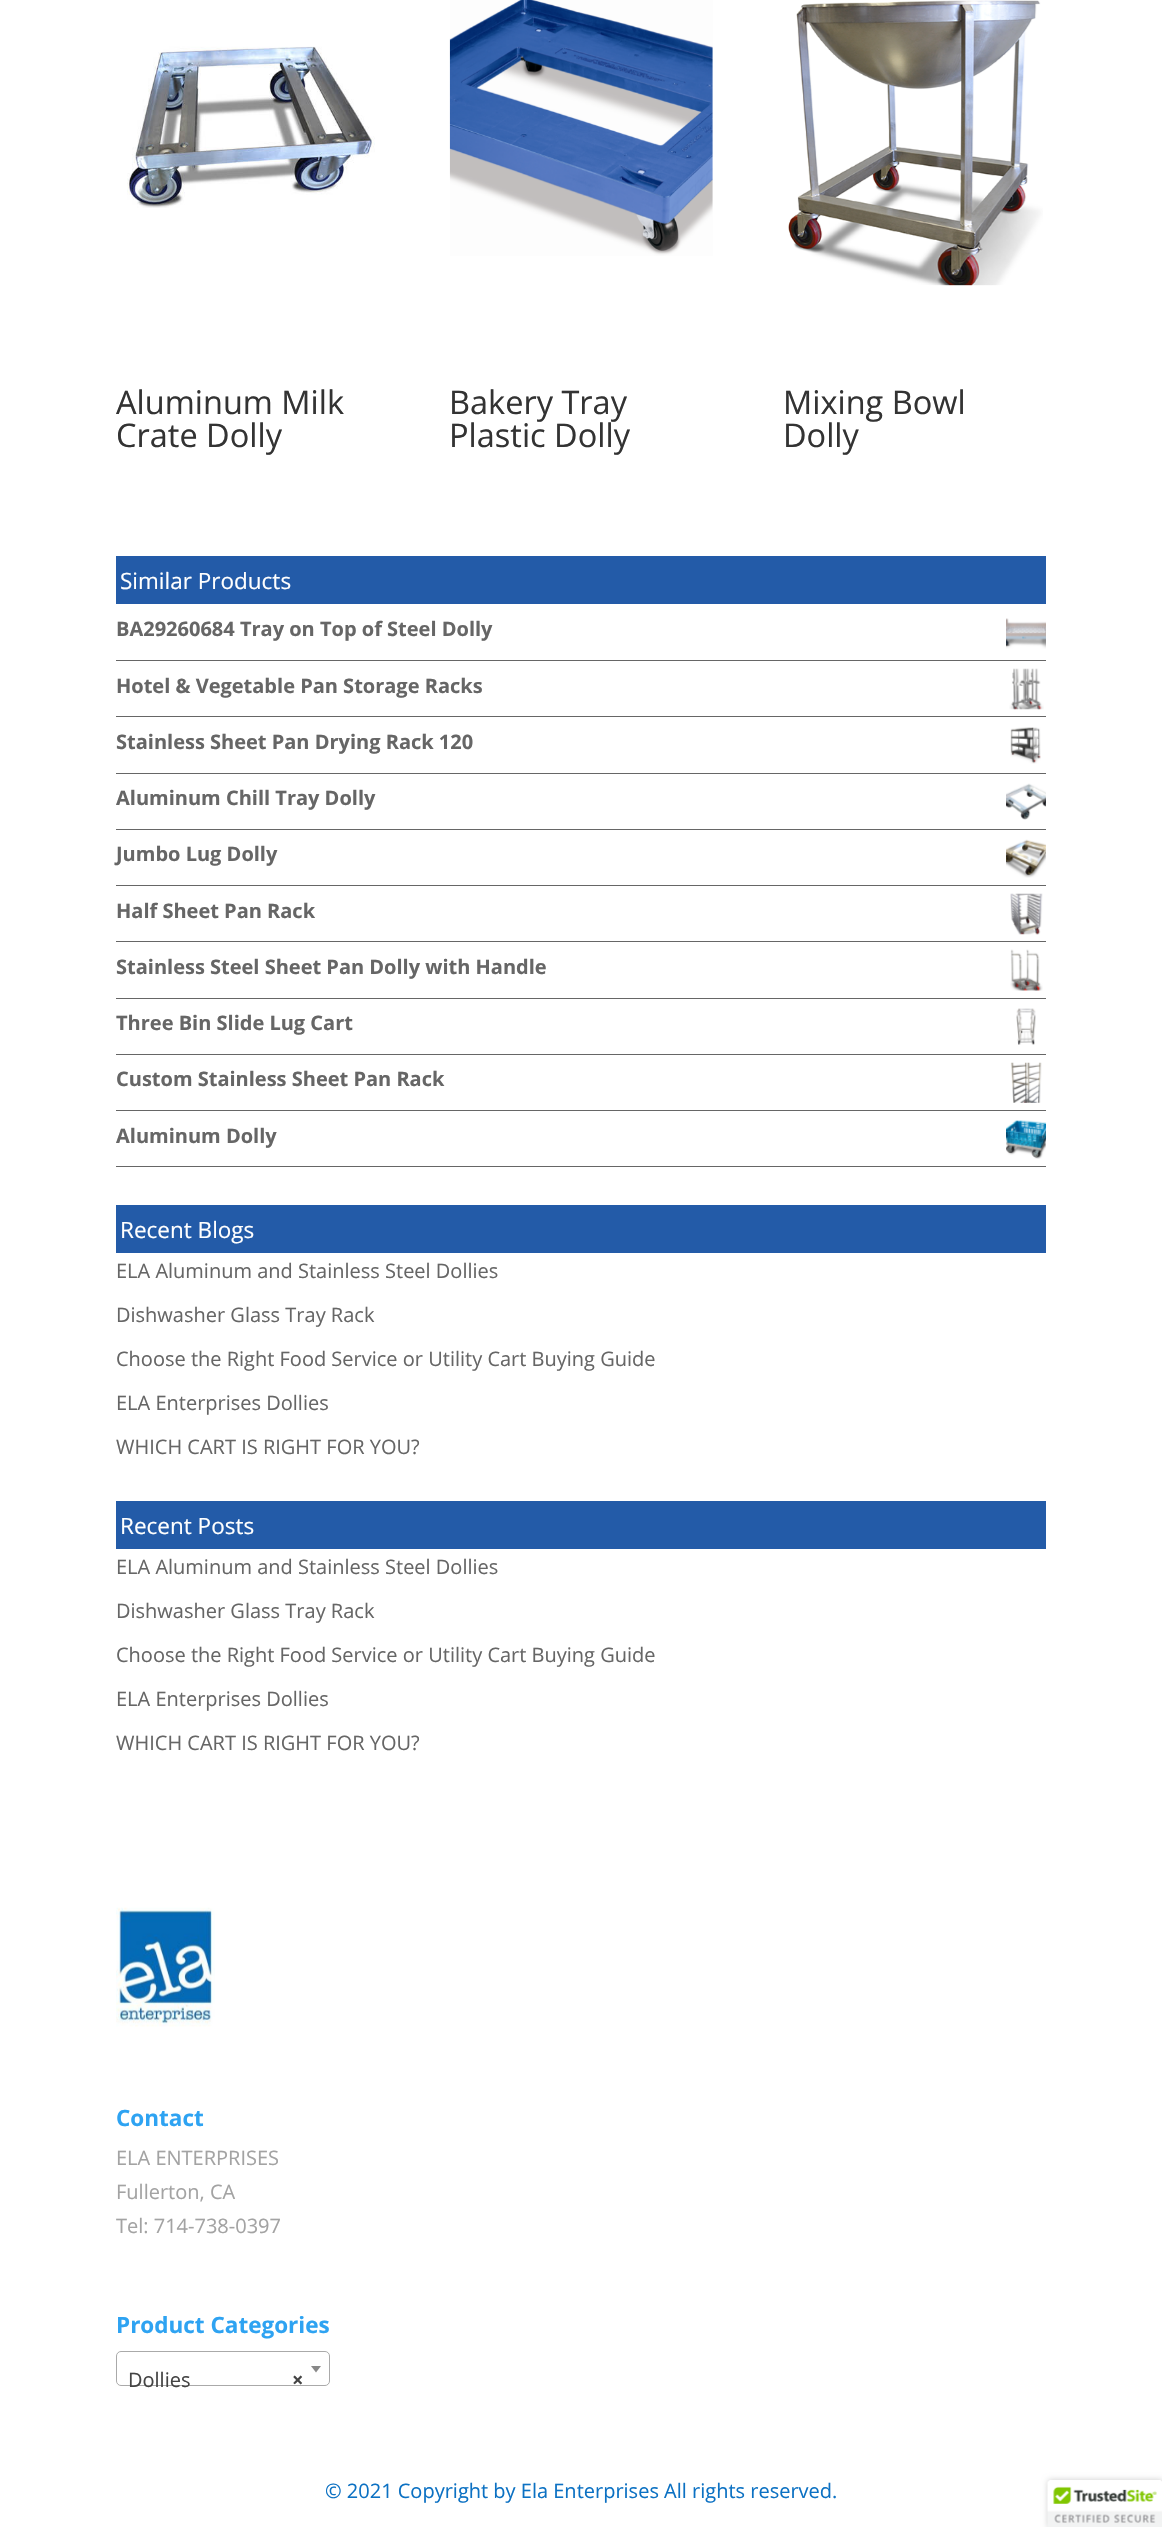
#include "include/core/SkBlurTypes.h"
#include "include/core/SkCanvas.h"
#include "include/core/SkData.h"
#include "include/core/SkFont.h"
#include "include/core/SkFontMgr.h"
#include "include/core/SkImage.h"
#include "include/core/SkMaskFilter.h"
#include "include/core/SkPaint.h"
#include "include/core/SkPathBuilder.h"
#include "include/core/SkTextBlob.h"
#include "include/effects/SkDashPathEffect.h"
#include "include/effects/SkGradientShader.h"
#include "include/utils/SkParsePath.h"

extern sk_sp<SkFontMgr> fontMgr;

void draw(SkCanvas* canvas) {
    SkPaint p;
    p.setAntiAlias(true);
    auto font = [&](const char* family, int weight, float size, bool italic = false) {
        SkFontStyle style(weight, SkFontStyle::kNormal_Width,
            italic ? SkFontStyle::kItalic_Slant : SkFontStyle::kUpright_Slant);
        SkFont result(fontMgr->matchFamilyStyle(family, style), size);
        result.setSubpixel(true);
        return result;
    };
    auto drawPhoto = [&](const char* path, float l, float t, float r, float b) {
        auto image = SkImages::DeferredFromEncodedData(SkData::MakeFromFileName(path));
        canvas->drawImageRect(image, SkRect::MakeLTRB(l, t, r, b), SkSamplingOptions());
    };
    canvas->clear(0xFFFFFFFF);
    drawPhoto("media/1.png", 127, 46, 375, 208);
    auto font1 = font("Open Sans", 400, 32.5f);
    p.setColor(0xFF333333);
    canvas->drawString("Aluminum Milk", 116, 414, font1, p);
    canvas->drawString("Crate Dolly", 116, 447, font1, p);
    drawPhoto("media/2.png", 449, 0, 713, 256);
    canvas->drawString("Bakery Tray", 449, 414, font1, p);
    canvas->drawString("Plastic Dolly", 449, 447, font1, p);
    drawPhoto("media/3.png", 788, 0, 1043, 286);
    canvas->drawString("Mixing Bowl", 783, 414, font1, p);
    canvas->drawString("Dolly", 783, 447, font1, p);
    p.setColor(0xFF235BA8);
    canvas->drawRect(SkRect::MakeLTRB(116, 556, 1046, 604), p);
    auto font2 = font("Open Sans", 400, 22.5f);
    p.setColor(0xFFFFFFFF);
    canvas->drawString("Similar Products", 120, 589, font2, p);
    p.setColor(0xFF666666);
    canvas->drawRect(SkRect::MakeLTRB(116, 660, 1046, 661), p);
    auto font3 = font("Open Sans", 700, 20);
    canvas->drawString("BA29260684 Tray on Top of Steel Dolly", 116, 636, font3, p);
    drawPhoto("media/4.png", 1006, 618, 1046, 649);
    canvas->drawRect(SkRect::MakeLTRB(116, 716, 1046, 717), p);
    canvas->drawString("Hotel & Vegetable Pan Storage Racks", 116, 693, font3, p);
    drawPhoto("media/5.png", 1009, 668, 1044, 710);
    canvas->drawRect(SkRect::MakeLTRB(116, 773, 1046, 774), p);
    canvas->drawString("Stainless Sheet Pan Drying Rack 120", 116, 749, font3, p);
    drawPhoto("media/6.png", 1010, 727, 1041, 764);
    canvas->drawRect(SkRect::MakeLTRB(116, 829, 1046, 830), p);
    canvas->drawString("Aluminum Chill Tray Dolly", 116, 805, font3, p);
    drawPhoto("media/7.png", 1006, 783, 1046, 820);
    canvas->drawRect(SkRect::MakeLTRB(116, 885, 1046, 886), p);
    canvas->drawString("Jumbo Lug Dolly", 116, 861, font3, p);
    drawPhoto("media/8.png", 1006, 839, 1046, 878);
    canvas->drawRect(SkRect::MakeLTRB(116, 941, 1046, 942), p);
    canvas->drawString("Half Sheet Pan Rack", 116, 918, font3, p);
    drawPhoto("media/9.png", 1010, 893, 1043, 935);
    canvas->drawRect(SkRect::MakeLTRB(116, 998, 1046, 999), p);
    canvas->drawString("Stainless Steel Sheet Pan Dolly with Handle", 116, 974, font3, p);
    drawPhoto("media/10.png", 1010, 949, 1043, 991);
    canvas->drawRect(SkRect::MakeLTRB(116, 1054, 1046, 1055), p);
    canvas->drawString("Three Bin Slide Lug Cart", 116, 1030, font3, p);
    drawPhoto("media/11.png", 1016, 1008, 1036, 1045);
    canvas->drawRect(SkRect::MakeLTRB(116, 1110, 1046, 1111), p);
    canvas->drawString("Custom Stainless Sheet Pan Rack", 116, 1086, font3, p);
    drawPhoto("media/12.png", 1010, 1062, 1042, 1103);
    canvas->drawRect(SkRect::MakeLTRB(116, 1166, 1046, 1167), p);
    canvas->drawString("Aluminum Dolly", 116, 1143, font3, p);
    drawPhoto("media/13.png", 1006, 1120, 1046, 1159);
    p.setColor(0xFF235BA8);
    canvas->drawRect(SkRect::MakeLTRB(116, 1205, 1046, 1253), p);
    p.setColor(0xFFFFFFFF);
    canvas->drawString("Recent Blogs", 120, 1238, font2, p);
    auto font4 = font("Open Sans", 400, 20);
    p.setColor(0xFF666666);
    {
        const struct { const char* s; float x, y; } items[] = {
            {"ELA Aluminum and Stainless Steel Dollies", 116, 1278},
            {"Dishwasher Glass Tray Rack", 116, 1322},
            {"Choose the Right Food Service or Utility Cart Buying Guide", 116, 1366},
            {"ELA Enterprises Dollies", 116, 1410},
            {"WHICH CART IS RIGHT FOR YOU?", 116, 1454},
        };
        for (auto [s, x, y] : items) {
            canvas->drawString(s, x, y, font4, p);
        }
    }
    p.setColor(0xFF235BA8);
    canvas->drawRect(SkRect::MakeLTRB(116, 1501, 1046, 1549), p);
    p.setColor(0xFFFFFFFF);
    canvas->drawString("Recent Posts", 120, 1534, font2, p);
    p.setColor(0xFF666666);
    {
        const struct { const char* s; float x, y; } items[] = {
            {"ELA Aluminum and Stainless Steel Dollies", 116, 1574},
            {"Dishwasher Glass Tray Rack", 116, 1618},
            {"Choose the Right Food Service or Utility Cart Buying Guide", 116, 1662},
            {"ELA Enterprises Dollies", 116, 1706},
            {"WHICH CART IS RIGHT FOR YOU?", 116, 1750},
        };
        for (auto [s, x, y] : items) {
            canvas->drawString(s, x, y, font4, p);
        }
    }
    drawPhoto("media/14.png", 116, 1907, 215, 2027);
    auto font5 = font("Open Sans", 700, 22.5f);
    p.setColor(0xFF2EA3F2);
    canvas->drawString("Contact", 116, 2126, font5, p);
    p.setColor(0xFFA3A3A3);
    {
        const struct { const char* s; float x, y; } items[] = {
            {"ELA ENTERPRISES", 116, 2165},
            {"Fullerton, CA", 116, 2199},
            {"Tel: 714-738-0397", 116, 2233},
        };
        for (auto [s, x, y] : items) {
            canvas->drawString(s, x, y, font4, p);
        }
    }
    p.setColor(0xFF2EA3F2);
    canvas->drawString("Product Categories", 116, 2333, font5, p);
    p.setStyle(SkPaint::kStroke_Style);
    p.setStrokeWidth(1);
    p.setColor(0xFFAAAAAA);
    canvas->drawRoundRect(SkRect::MakeLTRB(116.5f, 2351.5f, 329.5f, 2385.5f), 4.5f, 4.5f, p);
    p.setStyle(SkPaint::kFill_Style);
    p.setColor(0xFF888888);
    canvas->drawPath(SkPathBuilder().moveTo(311, 2366).lineTo(321, 2366).lineTo(316, 2372.5f).close().detach(), p);
    p.setColor(0xFF444444);
    canvas->drawString("Dollies", 128, 2387, font4, p);
    canvas->drawString("×", 292, 2387, font3, p);
    p.setColor(0xFF0C71C3);
    canvas->drawString("© 2021 Copyright by Ela Enterprises All rights reserved.", 325, 2498, font4, p);
    p.setColor(0x33000000);
    p.setMaskFilter(SkMaskFilter::MakeBlur(kNormal_SkBlurStyle, 3));
    canvas->drawRoundRect(SkRect::MakeLTRB(1048, 2480, 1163, 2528), 2.5f, 2.5f, p);
    p.setMaskFilter(nullptr);
    drawPhoto("media/15.png", 1047, 2480, 1162, 2527);
}
